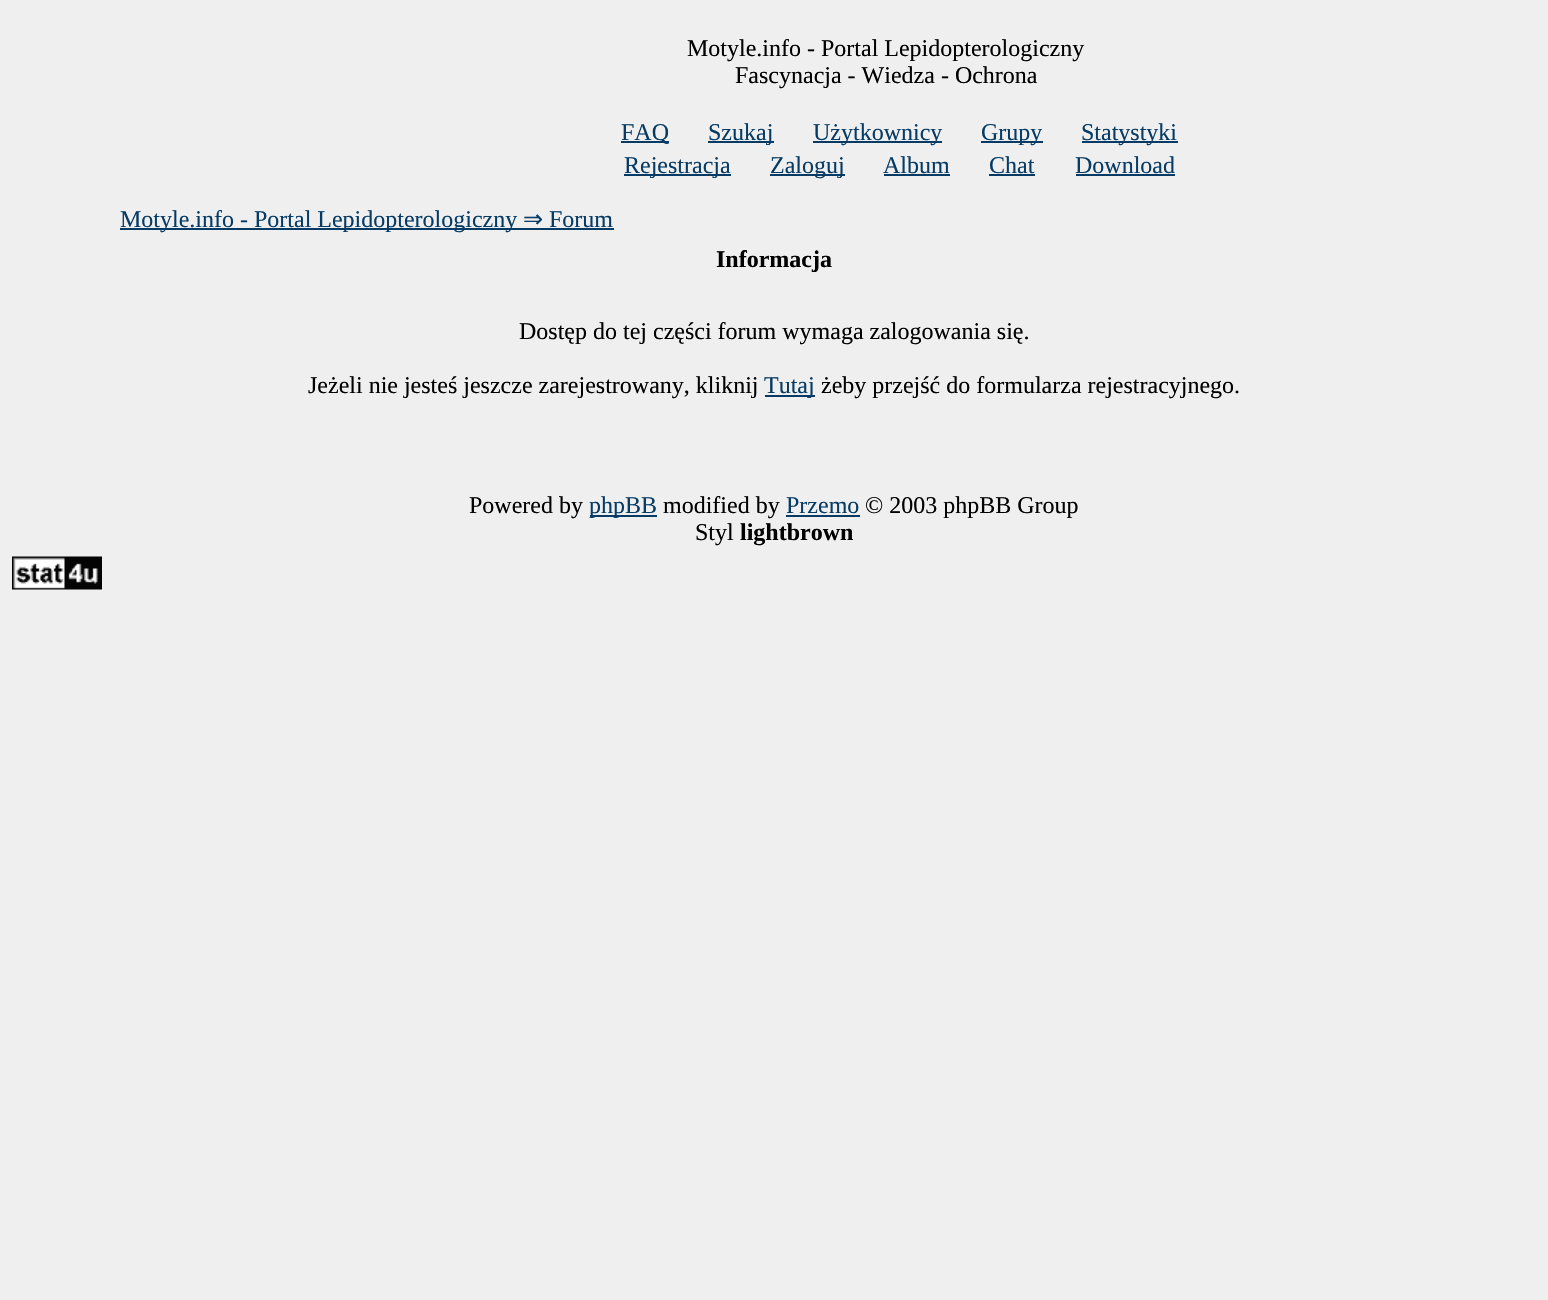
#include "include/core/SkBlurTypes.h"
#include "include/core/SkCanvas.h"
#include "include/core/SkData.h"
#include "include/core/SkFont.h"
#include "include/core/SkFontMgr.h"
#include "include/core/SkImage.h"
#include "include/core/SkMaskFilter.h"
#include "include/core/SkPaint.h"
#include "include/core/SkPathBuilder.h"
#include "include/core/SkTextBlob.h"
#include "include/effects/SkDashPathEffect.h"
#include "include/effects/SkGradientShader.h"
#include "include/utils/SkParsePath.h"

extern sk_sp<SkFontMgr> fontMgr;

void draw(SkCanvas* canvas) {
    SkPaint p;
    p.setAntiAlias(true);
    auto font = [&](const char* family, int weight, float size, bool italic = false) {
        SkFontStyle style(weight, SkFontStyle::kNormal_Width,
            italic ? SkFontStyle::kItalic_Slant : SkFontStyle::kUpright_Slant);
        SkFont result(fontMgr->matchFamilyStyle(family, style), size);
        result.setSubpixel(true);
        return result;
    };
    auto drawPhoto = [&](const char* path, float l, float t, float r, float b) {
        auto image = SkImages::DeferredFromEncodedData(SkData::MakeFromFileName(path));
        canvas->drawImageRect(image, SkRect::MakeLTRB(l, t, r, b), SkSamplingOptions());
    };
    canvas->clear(0xFFEFEFEF);
    auto font1 = font("Liberation Serif", 400, 24);
    p.setColor(0xFF000000);
    canvas->drawString("Motyle.info - Portal Lepidopterologiczny", 687, 56, font1, p);
    canvas->drawString("Fascynacja - Wiedza - Ochrona", 735, 83, font1, p);
    p.setColor(0xFF063B65);
    canvas->drawRect(SkRect::MakeLTRB(621, 141, 669, 143), p);
    canvas->drawString("FAQ", 621, 140, font1, p);
    canvas->drawRect(SkRect::MakeLTRB(708, 141, 774, 143), p);
    canvas->drawString("Szukaj", 708, 140, font1, p);
    canvas->drawRect(SkRect::MakeLTRB(813, 141, 942, 143), p);
    canvas->drawString("Użytkownicy", 813, 140, font1, p);
    canvas->drawRect(SkRect::MakeLTRB(981, 141, 1043, 143), p);
    canvas->drawString("Grupy", 981, 140, font1, p);
    canvas->drawRect(SkRect::MakeLTRB(1082, 141, 1178, 143), p);
    canvas->drawString("Statystyki", 1081, 140, font1, p);
    canvas->drawRect(SkRect::MakeLTRB(624, 174, 731, 176), p);
    canvas->drawString("Rejestracja", 624, 173, font1, p);
    canvas->drawRect(SkRect::MakeLTRB(770, 174, 845, 176), p);
    canvas->drawString("Zaloguj", 770, 173, font1, p);
    canvas->drawString("Album", 883, 173, font1, p);
    canvas->drawRect(SkRect::MakeLTRB(884, 174, 950, 176), p);
    canvas->drawString("Chat", 989, 173, font1, p);
    canvas->drawRect(SkRect::MakeLTRB(989, 174, 1035, 176), p);
    canvas->drawString("Download", 1075, 173, font1, p);
    canvas->drawRect(SkRect::MakeLTRB(1076, 174, 1175, 176), p);
    canvas->drawRect(SkRect::MakeLTRB(120, 228, 614, 230), p);
    canvas->drawString("Motyle.info - Portal Lepidopterologiczny", 120, 227, font1, p);
    auto font2 = font("DejaVu Sans", 400, 24);
    canvas->drawString("⇒", 523, 227, font2, p);
    canvas->drawString("Forum", 549, 227, font1, p);
    auto font3 = font("Liberation Serif", 700, 24);
    p.setColor(0xFF000000);
    canvas->drawString("Informacja", 716, 267, font3, p);
    canvas->drawString("Dostęp do tej części forum wymaga zalogowania się.", 519, 339, font1, p);
    canvas->drawString("Jeżeli nie jesteś jeszcze zarejestrowany, kliknij", 308, 393, font1, p);
    p.setColor(0xFF063B65);
    canvas->drawRect(SkRect::MakeLTRB(765, 395, 815, 397), p);
    canvas->drawString("Tutaj", 764, 393, font1, p);
    p.setColor(0xFF000000);
    canvas->drawString("żeby przejść do formularza rejestracyjnego.", 821, 393, font1, p);
    canvas->drawString("Powered by", 469, 513, font1, p);
    p.setColor(0xFF063B65);
    canvas->drawRect(SkRect::MakeLTRB(590, 515, 657, 517), p);
    canvas->drawString("phpBB", 589, 513, font1, p);
    p.setColor(0xFF000000);
    canvas->drawString("modified by", 663, 513, font1, p);
    p.setColor(0xFF063B65);
    canvas->drawString("Przemo", 786, 513, font1, p);
    canvas->drawRect(SkRect::MakeLTRB(786, 515, 860, 517), p);
    p.setColor(0xFF000000);
    canvas->drawString("© 2003 phpBB Group", 865, 513, font1, p);
    canvas->drawString("Styl", 695, 540, font1, p);
    canvas->drawString("lightbrown", 740, 540, font3, p);
    drawPhoto("media/1.png", 12, 556, 102, 590);
}
